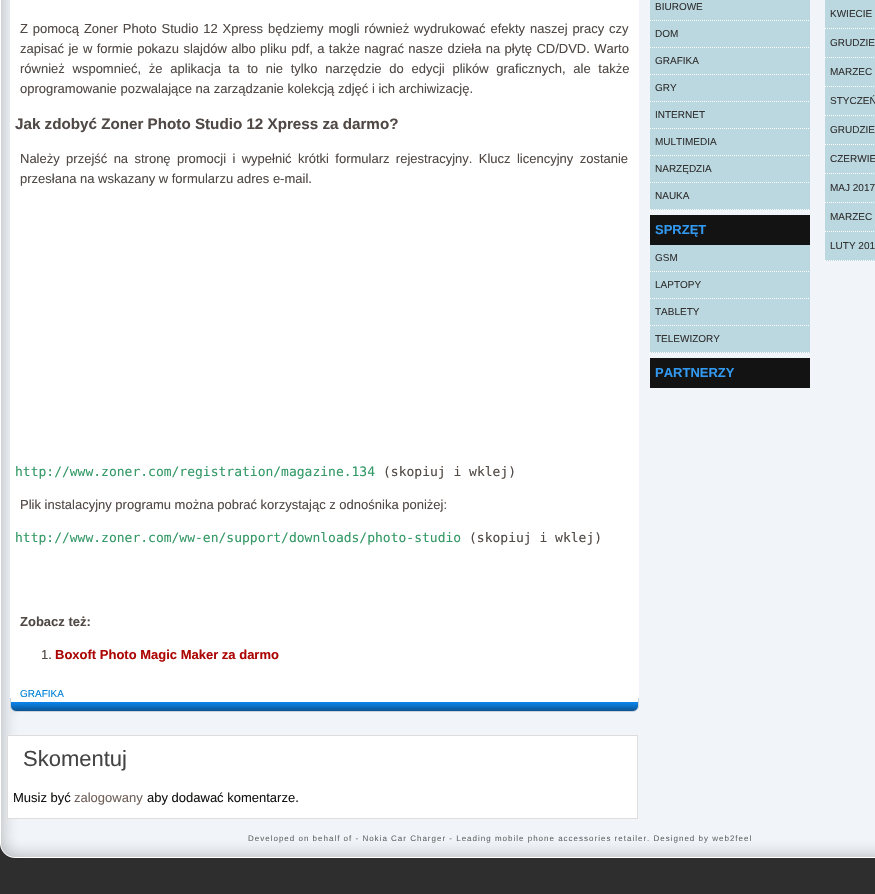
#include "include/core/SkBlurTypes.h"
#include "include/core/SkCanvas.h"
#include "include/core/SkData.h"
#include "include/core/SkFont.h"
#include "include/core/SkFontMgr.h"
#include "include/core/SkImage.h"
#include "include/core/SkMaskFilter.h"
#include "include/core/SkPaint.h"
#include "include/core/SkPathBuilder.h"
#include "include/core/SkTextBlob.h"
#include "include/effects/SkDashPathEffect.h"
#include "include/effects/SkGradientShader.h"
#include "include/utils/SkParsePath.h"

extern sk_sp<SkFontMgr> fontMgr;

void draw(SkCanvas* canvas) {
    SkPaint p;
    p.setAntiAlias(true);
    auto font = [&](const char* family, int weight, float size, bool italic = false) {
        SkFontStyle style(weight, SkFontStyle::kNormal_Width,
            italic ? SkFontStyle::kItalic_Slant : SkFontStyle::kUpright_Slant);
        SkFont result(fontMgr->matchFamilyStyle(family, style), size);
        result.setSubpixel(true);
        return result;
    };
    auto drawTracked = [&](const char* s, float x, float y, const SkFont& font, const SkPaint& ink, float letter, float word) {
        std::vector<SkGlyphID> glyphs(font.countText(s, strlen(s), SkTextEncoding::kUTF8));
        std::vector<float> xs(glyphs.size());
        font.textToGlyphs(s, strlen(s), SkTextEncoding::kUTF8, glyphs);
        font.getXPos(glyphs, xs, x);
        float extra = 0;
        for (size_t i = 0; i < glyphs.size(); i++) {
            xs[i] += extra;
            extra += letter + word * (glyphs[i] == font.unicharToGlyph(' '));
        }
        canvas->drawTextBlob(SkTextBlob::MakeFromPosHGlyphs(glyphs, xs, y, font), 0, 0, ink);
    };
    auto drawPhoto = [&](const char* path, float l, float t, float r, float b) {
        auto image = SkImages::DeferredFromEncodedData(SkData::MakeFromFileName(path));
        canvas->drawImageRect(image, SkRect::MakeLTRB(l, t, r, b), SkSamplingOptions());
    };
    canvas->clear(0xFFFFFFFF);
    drawPhoto("media/1.png", 0, 0, 875, 824);
    p.setColor(0xFFFFFFFF);
    canvas->drawRect(SkRect::MakeLTRB(10, 0, 639, 698), p);
    auto font1 = font("Liberation Sans", 400, 13);
    p.setColor(0xFF504945);
    drawTracked("Z pomocą Zoner Photo Studio 12 Xpress będziemy mogli również wydrukować efekty naszej pracy czy", 20, 33, font1, p, 0, 1.25f);
    drawTracked("zapisać je w formie pokazu slajdów albo pliku pdf, a także nagrać nasze dzieła na płytę CD/DVD. Warto", 20, 53, font1, p, 0, 0.75f);
    drawTracked("również wspomnieć, że aplikacja ta to nie tylko narzędzie do edycji plików graficznych, ale także", 20, 73, font1, p, 0, 4.1f);
    canvas->drawString("oprogramowanie pozwalające na zarządzanie kolekcją zdjęć i ich archiwizację.", 20, 93, font1, p);
    auto font2 = font("Liberation Sans", 700, 15.2f);
    canvas->drawString("Jak zdobyć Zoner Photo Studio 12 Xpress za darmo?", 15, 129, font2, p);
    drawTracked("Należy przejść na stronę promocji i wypełnić krótki formularz rejestracyjny. Klucz licencyjny zostanie", 20, 163, font1, p, 0, 2.75f);
    canvas->drawString("przesłana na wskazany w formularzu adres e-mail.", 20, 183, font1, p);
    auto font3 = font("DejaVu Sans Mono", 400, 13);
    p.setColor(0xFF339966);
    canvas->drawString("http://www.zoner.com/registration/magazine.134", 15, 476, font3, p);
    p.setColor(0xFF504945);
    canvas->drawString("(skopiuj i wklej)", 383, 476, font3, p);
    canvas->drawString("Plik instalacyjny programu można pobrać korzystając z odnośnika poniżej:", 20, 509, font1, p);
    p.setColor(0xFF339966);
    canvas->drawString("http://www.zoner.com/ww-en/support/downloads/photo-studio", 15, 542, font3, p);
    p.setColor(0xFF504945);
    canvas->drawString("(skopiuj i wklej)", 469, 542, font3, p);
    auto font4 = font("Liberation Sans", 700, 13);
    canvas->drawString("Zobacz też:", 20, 626, font4, p);
    canvas->drawString("1.", 41, 659, font1, p);
    p.setColor(0xFFAC0604);
    canvas->drawString("Boxoft Photo Magic Maker za darmo", 55, 659, font4, p);
    drawPhoto("media/2.png", 10, 698, 639, 715);
    auto font5 = font("Liberation Sans", 400, 10);
    p.setColor(0xFF0082D8);
    canvas->drawString("GRAFIKA", 20, 697, font5, p);
    p.setColor(0xFFFFFFFF);
    canvas->drawRect(SkRect::MakeLTRB(7.5f, 735.5f, 637.5f, 818.5f), p);
    p.setStyle(SkPaint::kStroke_Style);
    p.setStrokeWidth(1);
    p.setColor(0xFFDEDCDD);
    canvas->drawRect(SkRect::MakeLTRB(7.5f, 735.5f, 637.5f, 818.5f), p);
    auto font6 = font("Liberation Sans", 400, 22);
    p.setStyle(SkPaint::kFill_Style);
    p.setColor(0xFF444444);
    canvas->drawString("Skomentuj", 23, 766, font6, p);
    p.setColor(0xFF161514);
    canvas->drawString("Musiz być", 13, 802, font1, p);
    p.setColor(0xFF6F615A);
    canvas->drawString("zalogowany", 74, 802, font1, p);
    p.setColor(0xFF161514);
    canvas->drawString("aby dodawać komentarze.", 147, 802, font1, p);
    p.setColor(0xFFBBD7E0);
    canvas->drawRect(SkRect::MakeLTRB(650, 0, 810, 210), p);
    p.setStyle(SkPaint::kStroke_Style);
    p.setColor(0xFFFFFFFF);
    p.setPathEffect(SkDashPathEffect::Make({{1, 1}}, 0));
    canvas->drawPath(SkPathBuilder().moveTo(650, 20.5f).lineTo(810, 20.5f).detach(), p);
    p.setPathEffect(nullptr);
    p.setStyle(SkPaint::kFill_Style);
    p.setColor(0xFF333333);
    canvas->drawString("BIUROWE", 655, 10, font5, p);
    p.setStyle(SkPaint::kStroke_Style);
    p.setColor(0xFFFFFFFF);
    p.setPathEffect(SkDashPathEffect::Make({{1, 1}}, 0));
    canvas->drawPath(SkPathBuilder().moveTo(650, 47.5f).lineTo(810, 47.5f).detach(), p);
    p.setPathEffect(nullptr);
    p.setStyle(SkPaint::kFill_Style);
    p.setColor(0xFF333333);
    canvas->drawString("DOM", 655, 37, font5, p);
    p.setStyle(SkPaint::kStroke_Style);
    p.setColor(0xFFFFFFFF);
    p.setPathEffect(SkDashPathEffect::Make({{1, 1}}, 0));
    canvas->drawPath(SkPathBuilder().moveTo(650, 74.5f).lineTo(810, 74.5f).detach(), p);
    p.setPathEffect(nullptr);
    p.setStyle(SkPaint::kFill_Style);
    p.setColor(0xFF333333);
    canvas->drawString("GRAFIKA", 655, 64, font5, p);
    p.setStyle(SkPaint::kStroke_Style);
    p.setColor(0xFFFFFFFF);
    p.setPathEffect(SkDashPathEffect::Make({{1, 1}}, 0));
    canvas->drawPath(SkPathBuilder().moveTo(650, 101.5f).lineTo(810, 101.5f).detach(), p);
    p.setPathEffect(nullptr);
    p.setStyle(SkPaint::kFill_Style);
    p.setColor(0xFF333333);
    canvas->drawString("GRY", 655, 91, font5, p);
    p.setStyle(SkPaint::kStroke_Style);
    p.setColor(0xFFFFFFFF);
    p.setPathEffect(SkDashPathEffect::Make({{1, 1}}, 0));
    canvas->drawPath(SkPathBuilder().moveTo(650, 128.5f).lineTo(810, 128.5f).detach(), p);
    p.setPathEffect(nullptr);
    p.setStyle(SkPaint::kFill_Style);
    p.setColor(0xFF333333);
    canvas->drawString("INTERNET", 655, 118, font5, p);
    p.setStyle(SkPaint::kStroke_Style);
    p.setColor(0xFFFFFFFF);
    p.setPathEffect(SkDashPathEffect::Make({{1, 1}}, 0));
    canvas->drawPath(SkPathBuilder().moveTo(650, 155.5f).lineTo(810, 155.5f).detach(), p);
    p.setPathEffect(nullptr);
    p.setStyle(SkPaint::kFill_Style);
    p.setColor(0xFF333333);
    canvas->drawString("MULTIMEDIA", 655, 145, font5, p);
    p.setStyle(SkPaint::kStroke_Style);
    p.setColor(0xFFFFFFFF);
    p.setPathEffect(SkDashPathEffect::Make({{1, 1}}, 0));
    canvas->drawPath(SkPathBuilder().moveTo(650, 182.5f).lineTo(810, 182.5f).detach(), p);
    p.setPathEffect(nullptr);
    p.setStyle(SkPaint::kFill_Style);
    p.setColor(0xFF333333);
    canvas->drawString("NARZĘDZIA", 655, 172, font5, p);
    p.setStyle(SkPaint::kStroke_Style);
    p.setColor(0xFFFFFFFF);
    p.setPathEffect(SkDashPathEffect::Make({{1, 1}}, 0));
    canvas->drawPath(SkPathBuilder().moveTo(650, 209.5f).lineTo(810, 209.5f).detach(), p);
    p.setPathEffect(nullptr);
    p.setStyle(SkPaint::kFill_Style);
    p.setColor(0xFF333333);
    canvas->drawString("NAUKA", 655, 199, font5, p);
    p.setColor(0xFF141313);
    canvas->drawRect(SkRect::MakeLTRB(650, 215, 810, 245), p);
    p.setColor(0xFF3299F0);
    canvas->drawString("SPRZĘT", 655, 234, font4, p);
    p.setColor(0xFFBBD7E0);
    canvas->drawRect(SkRect::MakeLTRB(650, 245, 810, 353), p);
    p.setStyle(SkPaint::kStroke_Style);
    p.setColor(0xFFFFFFFF);
    p.setPathEffect(SkDashPathEffect::Make({{1, 1}}, 0));
    canvas->drawPath(SkPathBuilder().moveTo(650, 271.5f).lineTo(810, 271.5f).detach(), p);
    p.setPathEffect(nullptr);
    p.setStyle(SkPaint::kFill_Style);
    p.setColor(0xFF333333);
    canvas->drawString("GSM", 655, 261, font5, p);
    p.setStyle(SkPaint::kStroke_Style);
    p.setColor(0xFFFFFFFF);
    p.setPathEffect(SkDashPathEffect::Make({{1, 1}}, 0));
    canvas->drawPath(SkPathBuilder().moveTo(650, 298.5f).lineTo(810, 298.5f).detach(), p);
    p.setPathEffect(nullptr);
    p.setStyle(SkPaint::kFill_Style);
    p.setColor(0xFF333333);
    canvas->drawString("LAPTOPY", 655, 288, font5, p);
    p.setStyle(SkPaint::kStroke_Style);
    p.setColor(0xFFFFFFFF);
    p.setPathEffect(SkDashPathEffect::Make({{1, 1}}, 0));
    canvas->drawPath(SkPathBuilder().moveTo(650, 325.5f).lineTo(810, 325.5f).detach(), p);
    p.setPathEffect(nullptr);
    p.setStyle(SkPaint::kFill_Style);
    p.setColor(0xFF333333);
    canvas->drawString("TABLETY", 655, 315, font5, p);
    p.setStyle(SkPaint::kStroke_Style);
    p.setColor(0xFFFFFFFF);
    p.setPathEffect(SkDashPathEffect::Make({{1, 1}}, 0));
    canvas->drawPath(SkPathBuilder().moveTo(650, 352.5f).lineTo(810, 352.5f).detach(), p);
    p.setPathEffect(nullptr);
    p.setStyle(SkPaint::kFill_Style);
    p.setColor(0xFF333333);
    canvas->drawString("TELEWIZORY", 655, 342, font5, p);
    p.setColor(0xFF141313);
    canvas->drawRect(SkRect::MakeLTRB(650, 358, 810, 388), p);
    p.setColor(0xFF3299F0);
    canvas->drawString("PARTNERZY", 655, 377, font4, p);
    p.setColor(0xFFBBD7E0);
    canvas->drawRect(SkRect::MakeLTRB(825, 0, 875, 261), p);
    p.setStyle(SkPaint::kStroke_Style);
    p.setColor(0xFFFFFFFF);
    p.setPathEffect(SkDashPathEffect::Make({{1, 1}}, 0));
    canvas->drawPath(SkPathBuilder().moveTo(825, 28.5f).lineTo(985, 28.5f).detach(), p);
    p.setPathEffect(nullptr);
    p.setStyle(SkPaint::kFill_Style);
    p.setColor(0xFF333333);
    canvas->drawString("KWIECIE", 830, 17, font5, p);
    p.setStyle(SkPaint::kStroke_Style);
    p.setColor(0xFFFFFFFF);
    p.setPathEffect(SkDashPathEffect::Make({{1, 1}}, 0));
    canvas->drawPath(SkPathBuilder().moveTo(825, 57.5f).lineTo(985, 57.5f).detach(), p);
    p.setPathEffect(nullptr);
    p.setStyle(SkPaint::kFill_Style);
    p.setColor(0xFF333333);
    canvas->drawString("GRUDZIE", 830, 46, font5, p);
    p.setStyle(SkPaint::kStroke_Style);
    p.setColor(0xFFFFFFFF);
    p.setPathEffect(SkDashPathEffect::Make({{1, 1}}, 0));
    canvas->drawPath(SkPathBuilder().moveTo(825, 86.5f).lineTo(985, 86.5f).detach(), p);
    p.setPathEffect(nullptr);
    p.setStyle(SkPaint::kFill_Style);
    p.setColor(0xFF333333);
    canvas->drawString("MARZEC", 830, 75, font5, p);
    p.setStyle(SkPaint::kStroke_Style);
    p.setColor(0xFFFFFFFF);
    p.setPathEffect(SkDashPathEffect::Make({{1, 1}}, 0));
    canvas->drawPath(SkPathBuilder().moveTo(825, 115.5f).lineTo(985, 115.5f).detach(), p);
    p.setPathEffect(nullptr);
    p.setStyle(SkPaint::kFill_Style);
    p.setColor(0xFF333333);
    canvas->drawString("STYCZEŃ", 830, 104, font5, p);
    p.setStyle(SkPaint::kStroke_Style);
    p.setColor(0xFFFFFFFF);
    p.setPathEffect(SkDashPathEffect::Make({{1, 1}}, 0));
    canvas->drawPath(SkPathBuilder().moveTo(825, 144.5f).lineTo(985, 144.5f).detach(), p);
    p.setPathEffect(nullptr);
    p.setStyle(SkPaint::kFill_Style);
    p.setColor(0xFF333333);
    canvas->drawString("GRUDZIE", 830, 133, font5, p);
    p.setStyle(SkPaint::kStroke_Style);
    p.setColor(0xFFFFFFFF);
    p.setPathEffect(SkDashPathEffect::Make({{1, 1}}, 0));
    canvas->drawPath(SkPathBuilder().moveTo(825, 173.5f).lineTo(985, 173.5f).detach(), p);
    p.setPathEffect(nullptr);
    p.setStyle(SkPaint::kFill_Style);
    p.setColor(0xFF333333);
    canvas->drawString("CZERWIE", 830, 162, font5, p);
    p.setStyle(SkPaint::kStroke_Style);
    p.setColor(0xFFFFFFFF);
    p.setPathEffect(SkDashPathEffect::Make({{1, 1}}, 0));
    canvas->drawPath(SkPathBuilder().moveTo(825, 202.5f).lineTo(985, 202.5f).detach(), p);
    p.setPathEffect(nullptr);
    p.setStyle(SkPaint::kFill_Style);
    p.setColor(0xFF333333);
    canvas->drawString("MAJ 2017", 830, 191, font5, p);
    p.setStyle(SkPaint::kStroke_Style);
    p.setColor(0xFFFFFFFF);
    p.setPathEffect(SkDashPathEffect::Make({{1, 1}}, 0));
    canvas->drawPath(SkPathBuilder().moveTo(825, 231.5f).lineTo(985, 231.5f).detach(), p);
    p.setPathEffect(nullptr);
    p.setStyle(SkPaint::kFill_Style);
    p.setColor(0xFF333333);
    canvas->drawString("MARZEC", 830, 220, font5, p);
    p.setStyle(SkPaint::kStroke_Style);
    p.setColor(0xFFFFFFFF);
    p.setPathEffect(SkDashPathEffect::Make({{1, 1}}, 0));
    canvas->drawPath(SkPathBuilder().moveTo(825, 260.5f).lineTo(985, 260.5f).detach(), p);
    p.setPathEffect(nullptr);
    p.setStyle(SkPaint::kFill_Style);
    p.setColor(0xFF333333);
    canvas->drawString("LUTY 201", 830, 249, font5, p);
    drawPhoto("media/3.png", 0, 824, 875, 894);
    auto font7 = font("Liberation Sans", 400, 8);
    p.setColor(0xFF666666);
    drawTracked("Developed on behalf of - Nokia Car Charger - Leading mobile phone accessories retailer. Designed by web2feel", 248, 841, font7, p, 1, 0);
}
